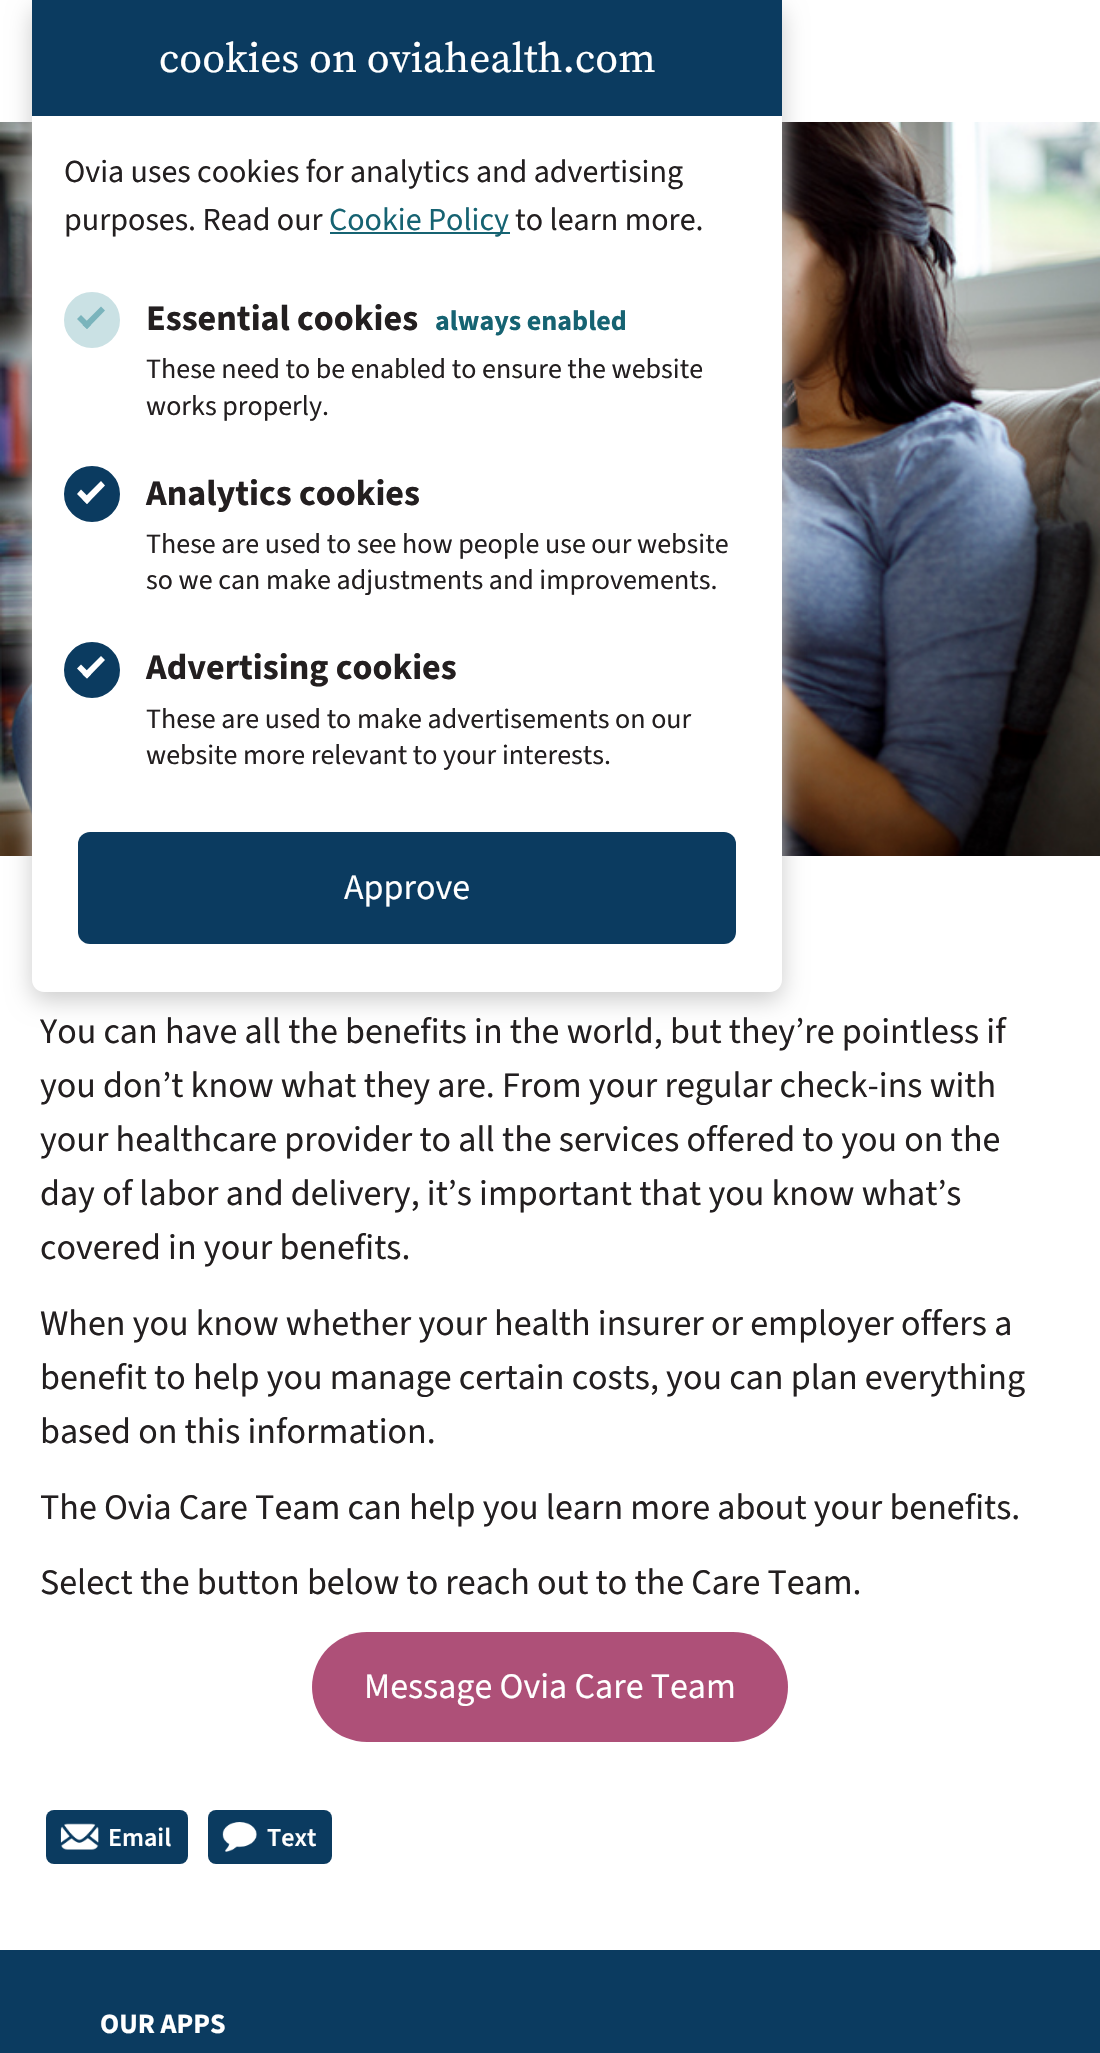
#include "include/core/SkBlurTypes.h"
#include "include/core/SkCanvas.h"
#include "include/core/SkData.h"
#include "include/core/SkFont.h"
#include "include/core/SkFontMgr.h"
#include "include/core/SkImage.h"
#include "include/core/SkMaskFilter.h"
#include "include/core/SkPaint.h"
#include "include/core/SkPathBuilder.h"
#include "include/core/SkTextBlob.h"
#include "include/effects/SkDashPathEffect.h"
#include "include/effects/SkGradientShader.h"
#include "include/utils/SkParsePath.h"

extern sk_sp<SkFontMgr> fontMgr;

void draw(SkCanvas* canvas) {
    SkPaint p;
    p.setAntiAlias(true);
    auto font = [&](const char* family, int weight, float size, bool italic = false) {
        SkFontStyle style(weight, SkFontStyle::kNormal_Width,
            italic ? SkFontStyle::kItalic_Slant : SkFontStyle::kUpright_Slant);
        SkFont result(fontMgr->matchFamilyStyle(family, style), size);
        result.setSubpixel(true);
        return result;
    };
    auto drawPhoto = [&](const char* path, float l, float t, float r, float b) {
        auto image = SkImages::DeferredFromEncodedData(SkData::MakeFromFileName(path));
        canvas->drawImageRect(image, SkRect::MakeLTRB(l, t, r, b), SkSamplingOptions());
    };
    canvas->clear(0xFFFFFFFF);
    drawPhoto("media/1.png", 0, 122, 1100, 856);
    p.setColor(0xFFCCCCCC);
    p.setMaskFilter(SkMaskFilter::MakeBlur(kNormal_SkBlurStyle, 12));
    canvas->drawRoundRect(SkRect::MakeLTRB(32, 8, 782, 1000), 12, 12, p);
    p.setMaskFilter(nullptr);
    p.setColor(0xFFFFFFFF);
    canvas->drawPath(SkPathBuilder().moveTo(32, 0).lineTo(782, 0).lineTo(782, 980).cubicTo(782, 986.5f, 776.5f, 992, 770, 992).lineTo(44, 992).cubicTo(37.5f, 992, 32, 986.5f, 32, 980).close().detach(), p);
    p.setColor(0xFF0B3B60);
    canvas->drawRect(SkRect::MakeLTRB(32, 0, 782, 116), p);
    auto font1 = font("Source Serif Pro", 400, 41.6f);
    p.setColor(0xFFFFFFFF);
    canvas->drawString("cookies on oviahealth.com", 159, 72, font1, p);
    auto font2 = font("Source Sans 3", 400, 32);
    p.setColor(0xFF231F20);
    canvas->drawString("Ovia uses cookies for analytics and advertising", 64, 182, font2, p);
    canvas->drawString("purposes. Read our", 64, 230, font2, p);
    p.setColor(0xFF166372);
    canvas->drawRect(SkRect::MakeLTRB(330, 232, 510, 234), p);
    canvas->drawString("Cookie Policy", 329, 230, font2, p);
    p.setColor(0xFF231F20);
    canvas->drawString("to learn more.", 515, 230, font2, p);
    p.setColor(0xFFCAE1E4);
    canvas->drawCircle(92, 320, 27, p);
    p.setStyle(SkPaint::kStroke_Style);
    p.setStrokeWidth(2);
    canvas->drawCircle(92, 320, 27, p);
    auto font3 = font("Source Sans 3", 700, 36);
    p.setStyle(SkPaint::kFill_Style);
    p.setColor(0xFF231F20);
    canvas->drawString("Essential cookies", 146, 330, font3, p);
    p.setColor(0xFF7AB4BC);
    canvas->drawPath(SkPathBuilder().moveTo(82.5f, 325).lineTo(101, 306.5f).lineTo(105, 310.5f).lineTo(87, 329).close().detach(), p);
    canvas->drawPath(SkPathBuilder().moveTo(77, 319).lineTo(81, 315).lineTo(91, 325).lineTo(87, 329).close().detach(), p);
    auto font4 = font("Source Sans 3", 700, 28);
    p.setColor(0xFF166372);
    canvas->drawString("always enabled", 435, 330, font4, p);
    auto font5 = font("Source Sans 3", 400, 28);
    p.setColor(0xFF231F20);
    canvas->drawString("These need to be enabled to ensure the website", 146, 378, font5, p);
    canvas->drawString("works properly.", 146, 415, font5, p);
    p.setColor(0xFF0B3B60);
    canvas->drawCircle(92, 494, 27, p);
    p.setStyle(SkPaint::kStroke_Style);
    canvas->drawCircle(92, 494, 27, p);
    p.setStyle(SkPaint::kFill_Style);
    p.setColor(0xFF231F20);
    canvas->drawString("Analytics cookies", 146, 505, font3, p);
    p.setColor(0xFFFFFFFF);
    canvas->drawPath(SkPathBuilder().moveTo(82.5f, 499.5f).lineTo(101, 481).lineTo(105, 485.5f).lineTo(87, 504).close().detach(), p);
    canvas->drawPath(SkPathBuilder().moveTo(77, 494).lineTo(81, 489.5f).lineTo(91, 499.5f).lineTo(87, 504).close().detach(), p);
    p.setColor(0xFF231F20);
    canvas->drawString("These are used to see how people use our website", 146, 553, font5, p);
    canvas->drawString("so we can make adjustments and improvements.", 146, 589, font5, p);
    p.setColor(0xFF0B3B60);
    canvas->drawCircle(92, 670, 27, p);
    p.setStyle(SkPaint::kStroke_Style);
    canvas->drawCircle(92, 670, 27, p);
    p.setStyle(SkPaint::kFill_Style);
    p.setColor(0xFF231F20);
    canvas->drawString("Advertising cookies", 146, 679, font3, p);
    p.setColor(0xFFFFFFFF);
    canvas->drawPath(SkPathBuilder().moveTo(82.5f, 674.5f).lineTo(101, 656).lineTo(105, 660).lineTo(87, 678.5f).close().detach(), p);
    canvas->drawPath(SkPathBuilder().moveTo(77, 668.5f).lineTo(81, 664.5f).lineTo(91, 674.5f).lineTo(87, 678.5f).close().detach(), p);
    p.setColor(0xFF231F20);
    canvas->drawString("These are used to make advertisements on our", 146, 728, font5, p);
    canvas->drawString("website more relevant to your interests.", 146, 764, font5, p);
    p.setColor(0xFF0B3B60);
    canvas->drawRoundRect(SkRect::MakeLTRB(78, 832, 736, 944), 12, 12, p);
    auto font6 = font("Source Sans 3", 400, 36);
    p.setColor(0xFFFFFFFF);
    canvas->drawString("Approve", 344, 899, font6, p);
    p.setColor(0xFF231F20);
    {
        const struct { const char* s; float x, y; } items[] = {
            {"You can have all the benefits in the world, but they’re pointless if", 40, 1043},
            {"you don’t know what they are. From your regular check-ins with", 40, 1097},
            {"your healthcare provider to all the services offered to you on the", 40, 1151},
            {"day of labor and delivery, it’s important that you know what’s", 40, 1205},
            {"covered in your benefits.", 40, 1259},
            {"When you know whether your health insurer or employer offers a", 40, 1335},
            {"benefit to help you manage certain costs, you can plan everything", 40, 1389},
            {"based on this information.", 40, 1443},
            {"The Ovia Care Team can help you learn more about your benefits.", 40, 1519},
            {"Select the button below to reach out to the Care Team.", 40, 1594},
        };
        for (auto [s, x, y] : items) {
            canvas->drawString(s, x, y, font6, p);
        }
    }
    p.setColor(0xFFAE5078);
    canvas->drawRoundRect(SkRect::MakeLTRB(312, 1632, 788, 1742), 55, 55, p);
    p.setColor(0xFFFFFFFF);
    canvas->drawString("Message Ovia Care Team", 364, 1698, font6, p);
    p.setColor(0xFF0B3B60);
    canvas->drawRoundRect(SkRect::MakeLTRB(46, 1810, 188, 1864), 8, 8, p);
    drawPhoto("media/2.png", 60, 1823, 99, 1850);
    auto font7 = font("Source Sans 3", 600, 26);
    p.setColor(0xFFFFFFFF);
    canvas->drawString("Email", 108, 1846, font7, p);
    p.setColor(0xFF0B3B60);
    canvas->drawRoundRect(SkRect::MakeLTRB(208, 1810, 332, 1864), 8, 8, p);
    drawPhoto("media/3.png", 222, 1822, 257, 1852);
    p.setColor(0xFFFFFFFF);
    canvas->drawString("Text", 267, 1846, font7, p);
    p.setColor(0xFF0B3B60);
    canvas->drawRect(SkRect::MakeLTRB(0, 1950, 1100, 2053), p);
    p.setColor(0xFFFFFFFF);
    canvas->drawString("OUR APPS", 100, 2033, font4, p);
}
